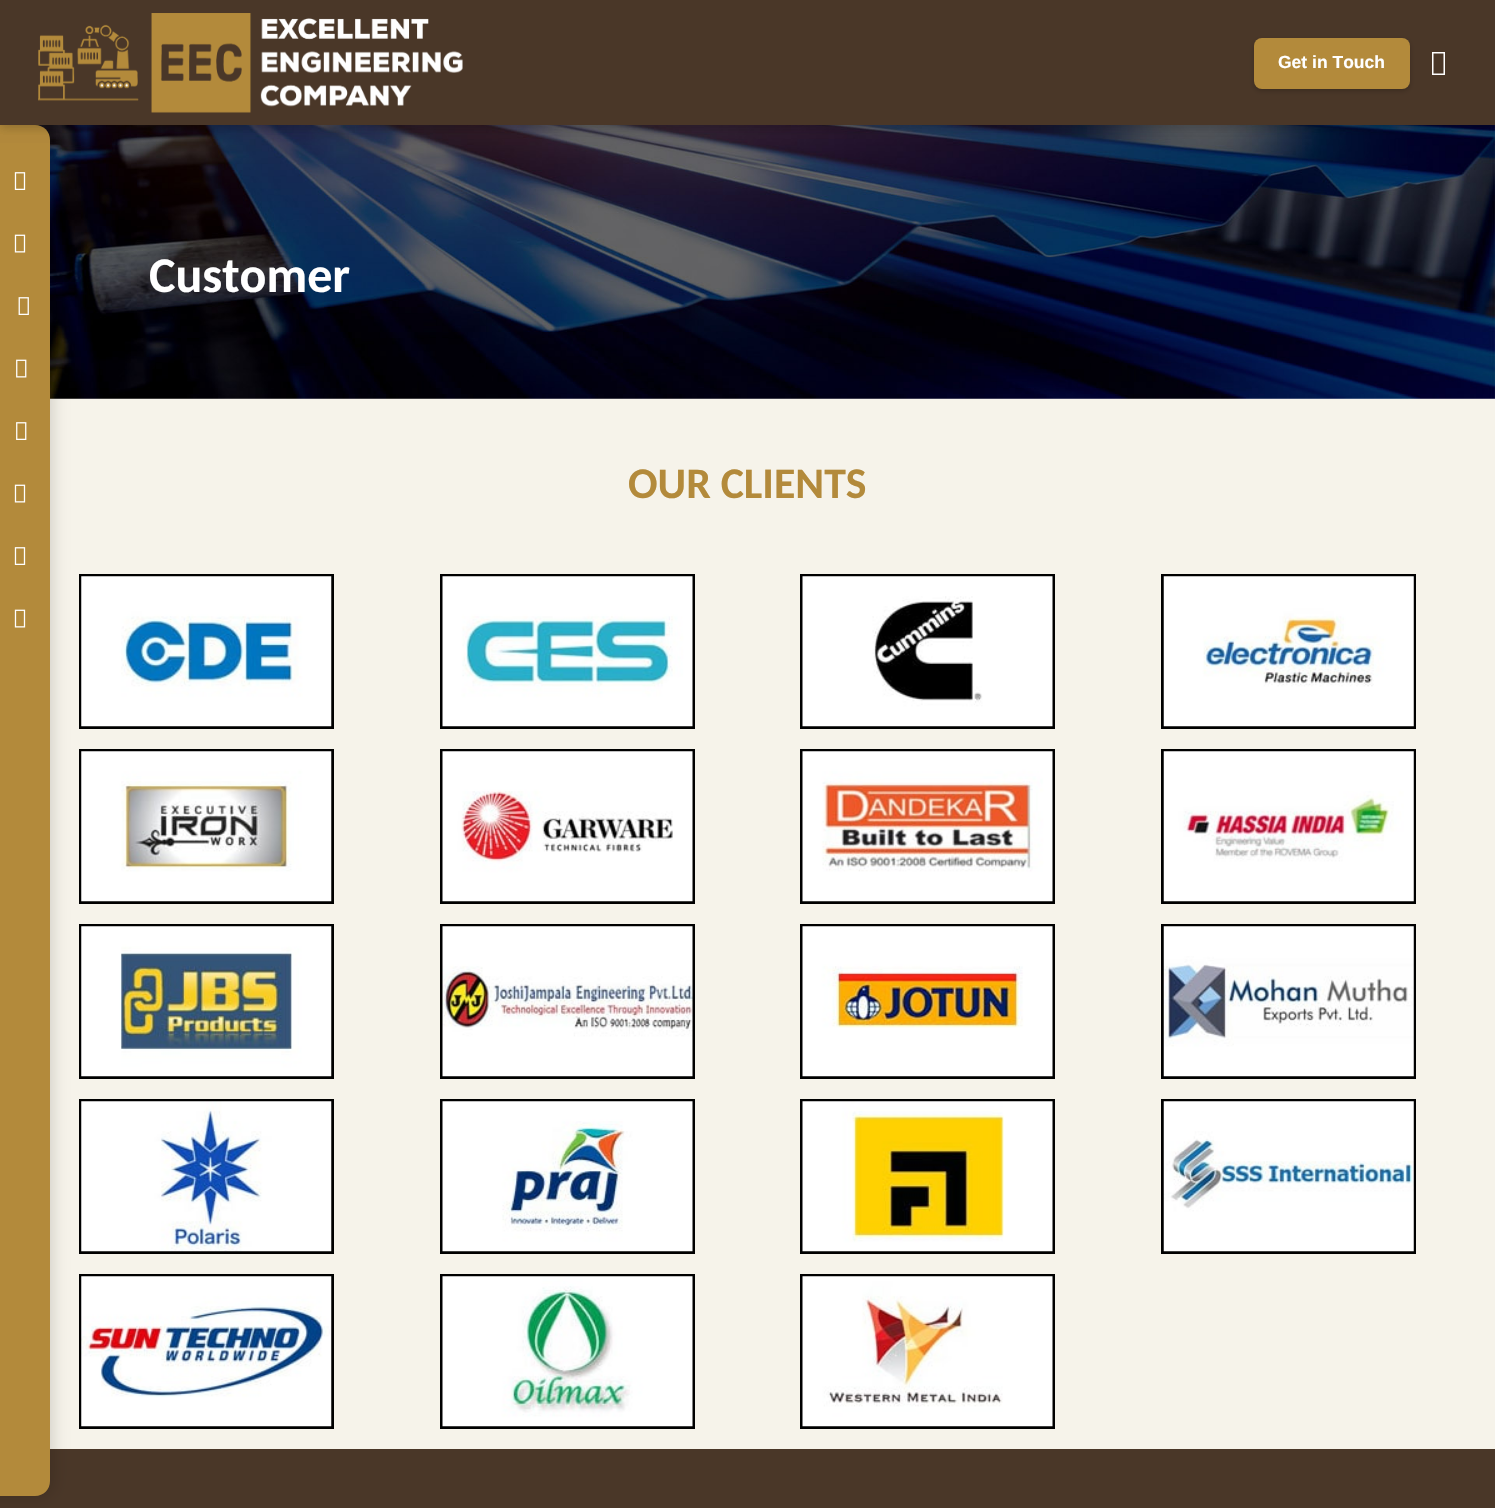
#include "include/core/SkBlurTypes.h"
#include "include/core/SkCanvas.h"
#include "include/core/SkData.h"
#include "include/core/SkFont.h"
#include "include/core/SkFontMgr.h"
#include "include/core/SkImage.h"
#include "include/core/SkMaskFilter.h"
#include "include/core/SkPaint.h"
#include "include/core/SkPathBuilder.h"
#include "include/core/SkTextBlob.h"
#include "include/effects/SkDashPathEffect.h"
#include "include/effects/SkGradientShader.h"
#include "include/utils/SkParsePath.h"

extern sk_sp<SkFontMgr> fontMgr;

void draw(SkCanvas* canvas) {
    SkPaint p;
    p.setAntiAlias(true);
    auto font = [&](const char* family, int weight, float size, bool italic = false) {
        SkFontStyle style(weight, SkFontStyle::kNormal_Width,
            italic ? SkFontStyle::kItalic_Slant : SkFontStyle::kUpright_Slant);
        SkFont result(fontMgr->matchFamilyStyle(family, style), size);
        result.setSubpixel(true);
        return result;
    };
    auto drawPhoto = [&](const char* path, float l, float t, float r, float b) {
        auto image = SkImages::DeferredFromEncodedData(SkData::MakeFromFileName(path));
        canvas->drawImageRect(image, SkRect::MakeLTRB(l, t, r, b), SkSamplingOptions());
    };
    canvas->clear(0xFFF6F3EA);
    drawPhoto("media/7.png", 35, 125, 1495, 399);
    p.setColor(0xFF4A3728);
    canvas->drawRect(SkRect::MakeLTRB(0, 1449, 1495, 1508), p);
    p.setColor(0x26000000);
    p.setMaskFilter(SkMaskFilter::MakeBlur(kNormal_SkBlurStyle, 7.5f));
    canvas->drawRoundRect(SkRect::MakeLTRB(-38, 125, 53, 1496), 15, 15, p);
    p.setMaskFilter(nullptr);
    p.setColor(0xFFB38A3B);
    canvas->drawPath(SkPathBuilder().moveTo(0, 125).lineTo(35, 125).cubicTo(43.5f, 125, 50, 131.5f, 50, 140).lineTo(50, 1481).cubicTo(50, 1489.5f, 43.5f, 1496, 35, 1496).lineTo(0, 1496).close().detach(), p);
    p.setColor(0x1A000000);
    p.setMaskFilter(SkMaskFilter::MakeBlur(kNormal_SkBlurStyle, 5));
    canvas->drawRect(SkRect::MakeLTRB(0, 3, 1495, 128), p);
    p.setMaskFilter(nullptr);
    p.setMaskFilter(SkMaskFilter::MakeBlur(kNormal_SkBlurStyle, 5));
    canvas->drawRect(SkRect::MakeLTRB(0, 3, 1495, 128), p);
    p.setMaskFilter(nullptr);
    p.setColor(0xFF4A3728);
    canvas->drawRect(SkRect::MakeLTRB(0, 0, 1495, 125), p);
    drawPhoto("media/1.png", 38, 13, 463, 113);
    p.setColor(0x33000000);
    p.setMaskFilter(SkMaskFilter::MakeBlur(kNormal_SkBlurStyle, 2.5f));
    canvas->drawRoundRect(SkRect::MakeLTRB(1254, 40, 1410, 91), 8, 8, p);
    p.setMaskFilter(nullptr);
    p.setColor(0xFFB38A3B);
    canvas->drawRoundRect(SkRect::MakeLTRB(1254, 38, 1410, 89), 8, 8, p);
    auto font1 = font("Liberation Sans", 700, 17.5f);
    p.setColor(0xFFFFFFFF);
    canvas->drawString("Get in Touch", 1278, 68, font1, p);
    canvas->drawPath(SkPathBuilder().moveTo(1432, 75).lineTo(1432, 52).lineTo(1445, 52).lineTo(1445, 75).close().moveTo(1433.5f, 73.5f).lineTo(1443.5f, 73.5f).lineTo(1443.5f, 53.5f).lineTo(1433.5f, 53.5f).close().detach(), p);
    drawPhoto("media/2.png", 14, 172, 26, 190);
    drawPhoto("media/3.png", 14, 234, 26, 253);
    drawPhoto("media/4.png", 18, 297, 29, 315);
    drawPhoto("media/5.png", 16, 359, 27, 378);
    drawPhoto("media/6.png", 16, 422, 27, 440);
    drawPhoto("media/3.png", 14, 484, 26, 503);
    drawPhoto("media/2.png", 14, 547, 26, 565);
    drawPhoto("media/3.png", 14, 609, 26, 628);
    auto font2 = font("Carlito", 700, 50);
    canvas->drawString("Customer", 149, 292, font2, p);
    auto font3 = font("Carlito", 700, 43.75f);
    p.setColor(0xFFB38A3B);
    canvas->drawString("OUR CLIENTS", 628, 498, font3, p);
    p.setStyle(SkPaint::kStroke_Style);
    p.setStrokeWidth(3);
    p.setColor(0xFF000000);
    canvas->drawRect(SkRect::MakeLTRB(80.5f, 575.5f, 332.5f, 727.5f), p);
    drawPhoto("media/8.png", 81, 576, 332, 727);
    canvas->drawRect(SkRect::MakeLTRB(441.5f, 575.5f, 693.5f, 727.5f), p);
    drawPhoto("media/9.png", 442, 576, 693, 727);
    canvas->drawRect(SkRect::MakeLTRB(801.5f, 575.5f, 1053.5f, 727.5f), p);
    drawPhoto("media/10.png", 802, 576, 1053, 727);
    canvas->drawRect(SkRect::MakeLTRB(1162.5f, 575.5f, 1414.5f, 727.5f), p);
    drawPhoto("media/11.png", 1163, 576, 1414, 727);
    canvas->drawRect(SkRect::MakeLTRB(80.5f, 750.5f, 332.5f, 902.5f), p);
    drawPhoto("media/12.png", 81, 751, 332, 902);
    canvas->drawRect(SkRect::MakeLTRB(441.5f, 750.5f, 693.5f, 902.5f), p);
    drawPhoto("media/13.png", 442, 751, 693, 902);
    canvas->drawRect(SkRect::MakeLTRB(801.5f, 750.5f, 1053.5f, 902.5f), p);
    drawPhoto("media/14.png", 802, 751, 1053, 902);
    canvas->drawRect(SkRect::MakeLTRB(1162.5f, 750.5f, 1414.5f, 902.5f), p);
    drawPhoto("media/15.png", 1163, 751, 1414, 902);
    canvas->drawRect(SkRect::MakeLTRB(80.5f, 925.5f, 332.5f, 1077.5f), p);
    drawPhoto("media/16.png", 81, 926, 332, 1077);
    canvas->drawRect(SkRect::MakeLTRB(441.5f, 925.5f, 693.5f, 1077.5f), p);
    drawPhoto("media/17.png", 442, 926, 693, 1077);
    canvas->drawRect(SkRect::MakeLTRB(801.5f, 925.5f, 1053.5f, 1077.5f), p);
    drawPhoto("media/18.png", 802, 926, 1053, 1077);
    canvas->drawRect(SkRect::MakeLTRB(1162.5f, 925.5f, 1414.5f, 1077.5f), p);
    drawPhoto("media/19.png", 1163, 926, 1414, 1077);
    canvas->drawRect(SkRect::MakeLTRB(80.5f, 1100.5f, 332.5f, 1252.5f), p);
    drawPhoto("media/20.png", 81, 1101, 332, 1252);
    canvas->drawRect(SkRect::MakeLTRB(441.5f, 1100.5f, 693.5f, 1252.5f), p);
    drawPhoto("media/21.png", 442, 1101, 693, 1252);
    canvas->drawRect(SkRect::MakeLTRB(801.5f, 1100.5f, 1053.5f, 1252.5f), p);
    drawPhoto("media/22.png", 802, 1101, 1053, 1252);
    canvas->drawRect(SkRect::MakeLTRB(1162.5f, 1100.5f, 1414.5f, 1252.5f), p);
    drawPhoto("media/23.png", 1163, 1101, 1414, 1252);
    canvas->drawRect(SkRect::MakeLTRB(80.5f, 1275.5f, 332.5f, 1427.5f), p);
    drawPhoto("media/24.png", 81, 1276, 332, 1427);
    canvas->drawRect(SkRect::MakeLTRB(441.5f, 1275.5f, 693.5f, 1427.5f), p);
    drawPhoto("media/25.png", 442, 1276, 693, 1427);
    canvas->drawRect(SkRect::MakeLTRB(801.5f, 1275.5f, 1053.5f, 1427.5f), p);
    drawPhoto("media/26.png", 802, 1276, 1053, 1427);
}
